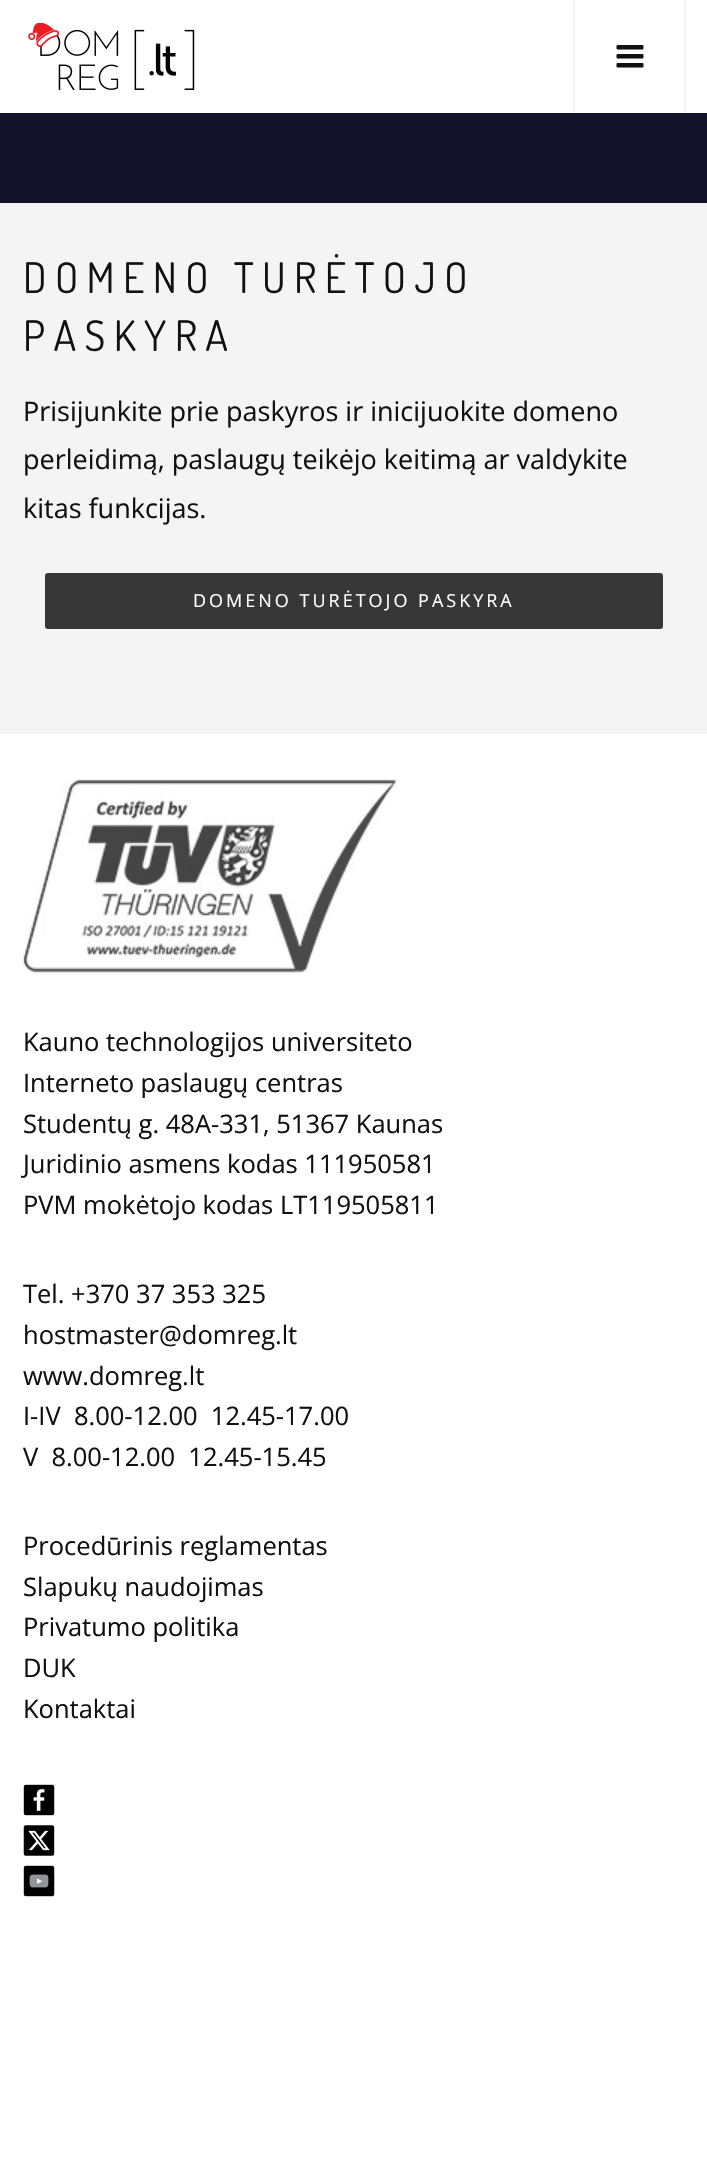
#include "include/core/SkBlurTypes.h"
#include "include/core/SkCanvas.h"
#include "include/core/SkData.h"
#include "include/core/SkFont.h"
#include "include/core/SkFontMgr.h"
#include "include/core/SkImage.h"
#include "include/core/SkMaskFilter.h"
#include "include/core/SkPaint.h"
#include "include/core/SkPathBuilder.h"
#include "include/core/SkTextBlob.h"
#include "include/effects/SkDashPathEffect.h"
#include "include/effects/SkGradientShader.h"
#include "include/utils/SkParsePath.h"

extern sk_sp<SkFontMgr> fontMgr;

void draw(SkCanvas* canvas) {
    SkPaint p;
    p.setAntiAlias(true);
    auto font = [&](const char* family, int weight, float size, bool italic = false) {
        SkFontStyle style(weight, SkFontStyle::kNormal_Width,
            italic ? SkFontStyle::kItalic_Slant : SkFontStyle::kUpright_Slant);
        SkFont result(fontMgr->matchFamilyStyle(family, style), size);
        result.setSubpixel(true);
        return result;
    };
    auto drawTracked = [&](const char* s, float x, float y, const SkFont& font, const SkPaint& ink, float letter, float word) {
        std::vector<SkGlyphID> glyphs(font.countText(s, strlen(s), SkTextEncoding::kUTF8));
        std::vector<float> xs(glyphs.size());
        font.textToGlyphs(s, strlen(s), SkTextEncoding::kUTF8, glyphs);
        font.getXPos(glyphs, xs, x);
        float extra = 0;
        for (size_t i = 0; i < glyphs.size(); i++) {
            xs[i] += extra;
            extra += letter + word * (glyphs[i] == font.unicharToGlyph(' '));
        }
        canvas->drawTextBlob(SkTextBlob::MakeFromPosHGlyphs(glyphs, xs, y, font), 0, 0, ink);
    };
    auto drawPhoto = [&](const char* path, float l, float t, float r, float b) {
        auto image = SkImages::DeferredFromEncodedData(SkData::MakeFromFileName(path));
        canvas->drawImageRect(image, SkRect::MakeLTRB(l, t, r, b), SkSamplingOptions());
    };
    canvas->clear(0xFFFFFFFF);
    drawPhoto("media/1.png", 28, 23, 195, 90);
    p.setColor(0xFFF2F2F2);
    canvas->drawRect(SkRect::MakeLTRB(684, 0, 686, 113), p);
    canvas->drawRect(SkRect::MakeLTRB(573, 0, 575, 113), p);
    drawPhoto("media/2.png", 616, 45, 644, 68);
    {
        const struct { float l, t, r, b; SkColor color; } items[] = {
            {0, 114, 707, 203, 0xFF131429},
            {0, 113, 707, 114, 0xFF121327},
            {0, 203, 707, 734, 0xFFF4F4F4},
        };
        for (auto [l, t, r, b, color] : items) {
            p.setColor(color);
            canvas->drawRect(SkRect::MakeLTRB(l, t, r, b), p);
        }
    }
    auto font1 = font("Dosis", 400, 42);
    p.setColor(0xFF111111);
    drawTracked("DOMENO TURĖTOJO", 23, 293, font1, p, 8.4f, 0);
    drawTracked("PASKYRA", 23, 351, font1, p, 8.4f, 0);
    auto font2 = font("Open Sans", 400, 27);
    {
        const struct { const char* s; float x, y; } items[] = {
            {"Prisijunkite prie paskyros ir inicijuokite domeno", 23, 421},
            {"perleidimą, paslaugų teikėjo keitimą ar valdykite", 23, 469},
            {"kitas funkcijas.", 23, 518},
        };
        for (auto [s, x, y] : items) {
            canvas->drawString(s, x, y, font2, p);
        }
    }
    p.setColor(0xFF373737);
    canvas->drawRoundRect(SkRect::MakeLTRB(45, 573, 663, 629), 3, 3, p);
    auto font3 = font("Open Sans", 400, 18);
    p.setColor(0xFFFFFFFF);
    drawTracked("DOMENO TURĖTOJO PASKYRA", 193, 607, font3, p, 3, 0);
    drawPhoto("media/3.png", 23, 779, 397, 973);
    auto font4 = font("Open Sans", 400, 25.5f);
    p.setColor(0xFF111111);
    {
        const struct { const char* s; float x, y; } items[] = {
            {"Kauno technologijos universiteto", 23, 1051},
            {"Interneto paslaugų centras", 23, 1092},
            {"Studentų g. 48A-331, 51367 Kaunas", 23, 1133},
            {"Juridinio asmens kodas 111950581", 23, 1173},
            {"PVM mokėtojo kodas LT119505811", 23, 1214},
            {"Tel. +370 37 353 325", 23, 1303},
            {"hostmaster@domreg.lt", 23, 1344},
            {"www.domreg.lt", 23, 1385},
            {"I-IV  8.00-12.00  12.45-17.00", 23, 1425},
            {"V  8.00-12.00  12.45-15.45", 23, 1466},
            {"Procedūrinis reglamentas", 23, 1555},
            {"Slapukų naudojimas", 23, 1596},
            {"Privatumo politika", 23, 1636},
            {"DUK", 23, 1677},
            {"Kontaktai", 23, 1718},
        };
        for (auto [s, x, y] : items) {
            canvas->drawString(s, x, y, font4, p);
        }
    }
    drawPhoto("media/4.png", 23, 1784, 55, 1816);
    drawPhoto("media/5.png", 23, 1825, 55, 1856);
    drawPhoto("media/6.png", 23, 1865, 55, 1897);
}
